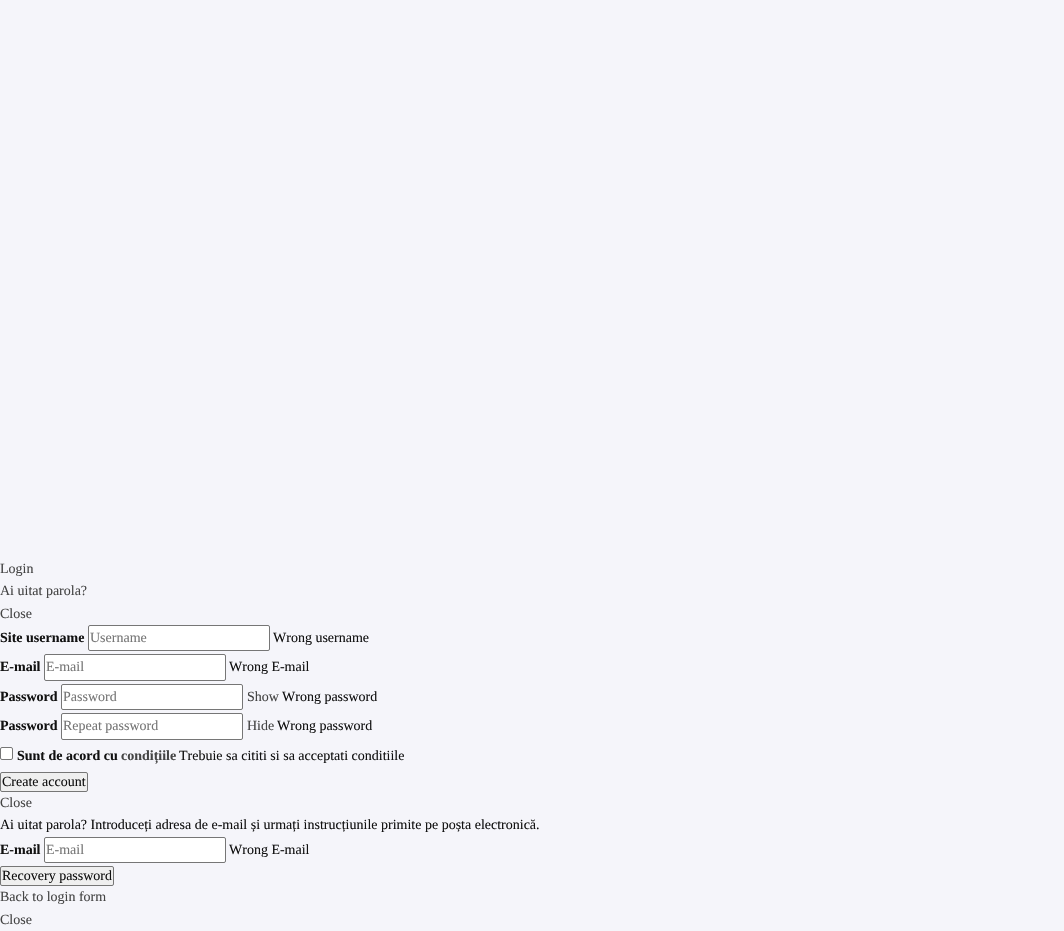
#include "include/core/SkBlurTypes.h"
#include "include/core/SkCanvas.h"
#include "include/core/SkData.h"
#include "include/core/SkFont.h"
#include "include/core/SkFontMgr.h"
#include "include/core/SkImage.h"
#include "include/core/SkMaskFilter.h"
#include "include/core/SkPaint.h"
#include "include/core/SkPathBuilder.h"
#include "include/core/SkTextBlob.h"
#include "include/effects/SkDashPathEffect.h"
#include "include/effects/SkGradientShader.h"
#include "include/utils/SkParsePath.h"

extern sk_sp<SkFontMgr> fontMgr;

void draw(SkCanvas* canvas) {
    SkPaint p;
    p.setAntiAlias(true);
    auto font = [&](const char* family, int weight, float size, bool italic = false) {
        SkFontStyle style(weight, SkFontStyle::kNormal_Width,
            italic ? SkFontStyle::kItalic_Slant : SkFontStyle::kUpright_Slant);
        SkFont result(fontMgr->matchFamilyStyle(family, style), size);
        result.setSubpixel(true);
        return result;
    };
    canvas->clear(0xFFF5F5FA);
    auto font1 = font("Liberation Serif", 400, 14);
    p.setColor(0xFF444444);
    {
        const struct { const char* s; float x, y; } items[] = {
            {"Login", 0, 573},
            {"Ai uitat parola?", 0, 595},
            {"Close", 0, 618},
        };
        for (auto [s, x, y] : items) {
            canvas->drawString(s, x, y, font1, p);
        }
    }
    auto font2 = font("Liberation Serif", 700, 14);
    p.setColor(0xFF111111);
    canvas->drawString("Site username", 0, 642, font2, p);
    p.setColor(0xFFFFFFFF);
    canvas->drawRoundRect(SkRect::MakeLTRB(88.5f, 625.5f, 269.5f, 650.5f), 1.5f, 1.5f, p);
    p.setStyle(SkPaint::kStroke_Style);
    p.setStrokeWidth(1);
    p.setColor(0xFF767676);
    canvas->drawRoundRect(SkRect::MakeLTRB(88.5f, 625.5f, 269.5f, 650.5f), 1.5f, 1.5f, p);
    p.setStyle(SkPaint::kFill_Style);
    p.setColor(0xFF757575);
    canvas->drawString("Username", 90, 642, font1, p);
    p.setColor(0xFF111111);
    canvas->drawString("Wrong username", 273, 642, font1, p);
    canvas->drawString("E-mail", 0, 671, font2, p);
    p.setColor(0xFFFFFFFF);
    canvas->drawRoundRect(SkRect::MakeLTRB(44.5f, 654.5f, 225.5f, 680.5f), 1.5f, 1.5f, p);
    p.setStyle(SkPaint::kStroke_Style);
    p.setColor(0xFF767676);
    canvas->drawRoundRect(SkRect::MakeLTRB(44.5f, 654.5f, 225.5f, 680.5f), 1.5f, 1.5f, p);
    p.setStyle(SkPaint::kFill_Style);
    p.setColor(0xFF757575);
    canvas->drawString("E-mail", 46, 671, font1, p);
    p.setColor(0xFF111111);
    canvas->drawString("Wrong E-mail", 229, 671, font1, p);
    canvas->drawString("Password", 0, 701, font2, p);
    p.setColor(0xFFFFFFFF);
    canvas->drawRoundRect(SkRect::MakeLTRB(61.5f, 684.5f, 242.5f, 709.5f), 1.5f, 1.5f, p);
    p.setStyle(SkPaint::kStroke_Style);
    p.setColor(0xFF767676);
    canvas->drawRoundRect(SkRect::MakeLTRB(61.5f, 684.5f, 242.5f, 709.5f), 1.5f, 1.5f, p);
    p.setStyle(SkPaint::kFill_Style);
    p.setColor(0xFF757575);
    canvas->drawString("Password", 63, 701, font1, p);
    p.setColor(0xFF444444);
    canvas->drawString("Show", 247, 701, font1, p);
    p.setColor(0xFF111111);
    canvas->drawString("Wrong password", 282, 701, font1, p);
    canvas->drawString("Password", 0, 730, font2, p);
    p.setColor(0xFFFFFFFF);
    canvas->drawRoundRect(SkRect::MakeLTRB(61.5f, 713.5f, 242.5f, 739.5f), 1.5f, 1.5f, p);
    p.setStyle(SkPaint::kStroke_Style);
    p.setColor(0xFF767676);
    canvas->drawRoundRect(SkRect::MakeLTRB(61.5f, 713.5f, 242.5f, 739.5f), 1.5f, 1.5f, p);
    p.setStyle(SkPaint::kFill_Style);
    p.setColor(0xFF757575);
    canvas->drawString("Repeat password", 63, 730, font1, p);
    p.setColor(0xFF444444);
    canvas->drawString("Hide", 247, 730, font1, p);
    p.setColor(0xFF111111);
    canvas->drawString("Wrong password", 277, 730, font1, p);
    p.setColor(0xFFFFFFFF);
    canvas->drawRoundRect(SkRect::MakeLTRB(0.5f, 747.5f, 12.5f, 759.5f), 1.5f, 1.5f, p);
    p.setStyle(SkPaint::kStroke_Style);
    p.setColor(0xFF767676);
    canvas->drawRoundRect(SkRect::MakeLTRB(0.5f, 747.5f, 12.5f, 759.5f), 1.5f, 1.5f, p);
    p.setStyle(SkPaint::kFill_Style);
    p.setColor(0xFF111111);
    canvas->drawString("Sunt de acord cu", 17, 760, font2, p);
    p.setColor(0xFF444444);
    canvas->drawString("condițiile", 121, 760, font2, p);
    p.setColor(0xFF111111);
    canvas->drawString("Trebuie sa cititi si sa acceptati conditiile", 179, 760, font1, p);
    p.setColor(0xFFEFEFEF);
    canvas->drawRoundRect(SkRect::MakeLTRB(0.5f, 772.5f, 87.5f, 791.5f), 1.5f, 1.5f, p);
    p.setStyle(SkPaint::kStroke_Style);
    p.setColor(0xFF767676);
    canvas->drawRoundRect(SkRect::MakeLTRB(0.5f, 772.5f, 87.5f, 791.5f), 1.5f, 1.5f, p);
    p.setStyle(SkPaint::kFill_Style);
    p.setColor(0xFF111111);
    canvas->drawString("Create account", 2, 786, font1, p);
    p.setColor(0xFF444444);
    canvas->drawString("Close", 0, 807, font1, p);
    p.setColor(0xFF111111);
    canvas->drawString("Ai uitat parola? Introduceți adresa de e-mail și urmați instrucțiunile primite pe poșta electronică.", 0, 829, font1, p);
    canvas->drawString("E-mail", 0, 854, font2, p);
    p.setColor(0xFFFFFFFF);
    canvas->drawRoundRect(SkRect::MakeLTRB(44.5f, 837.5f, 225.5f, 862.5f), 1.5f, 1.5f, p);
    p.setStyle(SkPaint::kStroke_Style);
    p.setColor(0xFF767676);
    canvas->drawRoundRect(SkRect::MakeLTRB(44.5f, 837.5f, 225.5f, 862.5f), 1.5f, 1.5f, p);
    p.setStyle(SkPaint::kFill_Style);
    p.setColor(0xFF757575);
    canvas->drawString("E-mail", 46, 854, font1, p);
    p.setColor(0xFF111111);
    canvas->drawString("Wrong E-mail", 229, 854, font1, p);
    p.setColor(0xFFEFEFEF);
    canvas->drawRoundRect(SkRect::MakeLTRB(0.5f, 866.5f, 113.5f, 885.5f), 1.5f, 1.5f, p);
    p.setStyle(SkPaint::kStroke_Style);
    p.setColor(0xFF767676);
    canvas->drawRoundRect(SkRect::MakeLTRB(0.5f, 866.5f, 113.5f, 885.5f), 1.5f, 1.5f, p);
    p.setStyle(SkPaint::kFill_Style);
    p.setColor(0xFF111111);
    canvas->drawString("Recovery password", 2, 880, font1, p);
    p.setColor(0xFF444444);
    canvas->drawString("Back to login form", 0, 901, font1, p);
    canvas->drawString("Close", 0, 924, font1, p);
}
